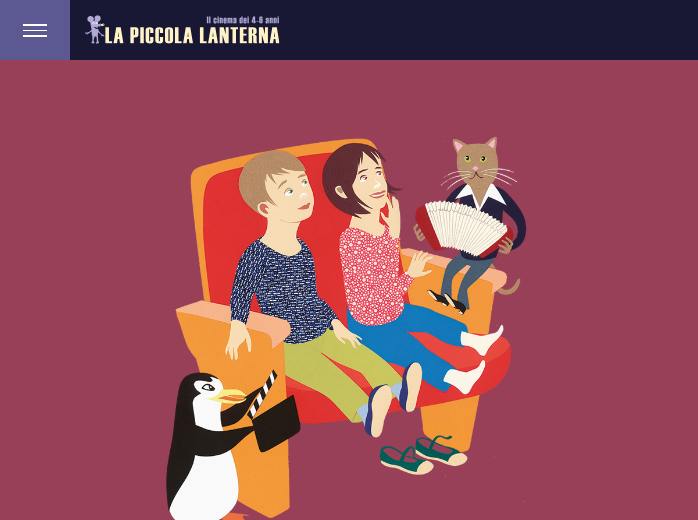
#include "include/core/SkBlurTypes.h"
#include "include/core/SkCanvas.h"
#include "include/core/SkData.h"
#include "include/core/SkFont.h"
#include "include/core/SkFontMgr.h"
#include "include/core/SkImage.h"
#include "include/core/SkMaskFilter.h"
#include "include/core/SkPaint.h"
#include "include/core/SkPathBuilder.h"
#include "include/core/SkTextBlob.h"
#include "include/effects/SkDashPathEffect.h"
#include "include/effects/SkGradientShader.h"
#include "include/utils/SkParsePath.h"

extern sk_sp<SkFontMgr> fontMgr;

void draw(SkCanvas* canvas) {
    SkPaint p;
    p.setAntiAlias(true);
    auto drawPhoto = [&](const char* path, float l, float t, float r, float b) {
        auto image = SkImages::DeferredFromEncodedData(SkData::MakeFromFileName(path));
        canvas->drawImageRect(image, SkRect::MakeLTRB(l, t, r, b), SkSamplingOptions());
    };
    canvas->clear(0xFF994059);
    {
        const struct { float l, t, r, b; SkColor color; } items[] = {
            {70, 0, 698, 60, 0xFF181835},
            {0, 0, 70, 60, 0xFF5C5892},
            {23, 30, 47, 31, 0xFFFFFFFF},
            {23, 24, 47, 26, 0xFFFFFFFF},
            {23, 35, 47, 37, 0xFFFFFFFF},
        };
        for (auto [l, t, r, b, color] : items) {
            p.setColor(color);
            canvas->drawRect(SkRect::MakeLTRB(l, t, r, b), p);
        }
    }
    drawPhoto("media/1.png", 85, 15, 280, 44);
    drawPhoto("media/2.png", 163, 90, 530, 520);
}
